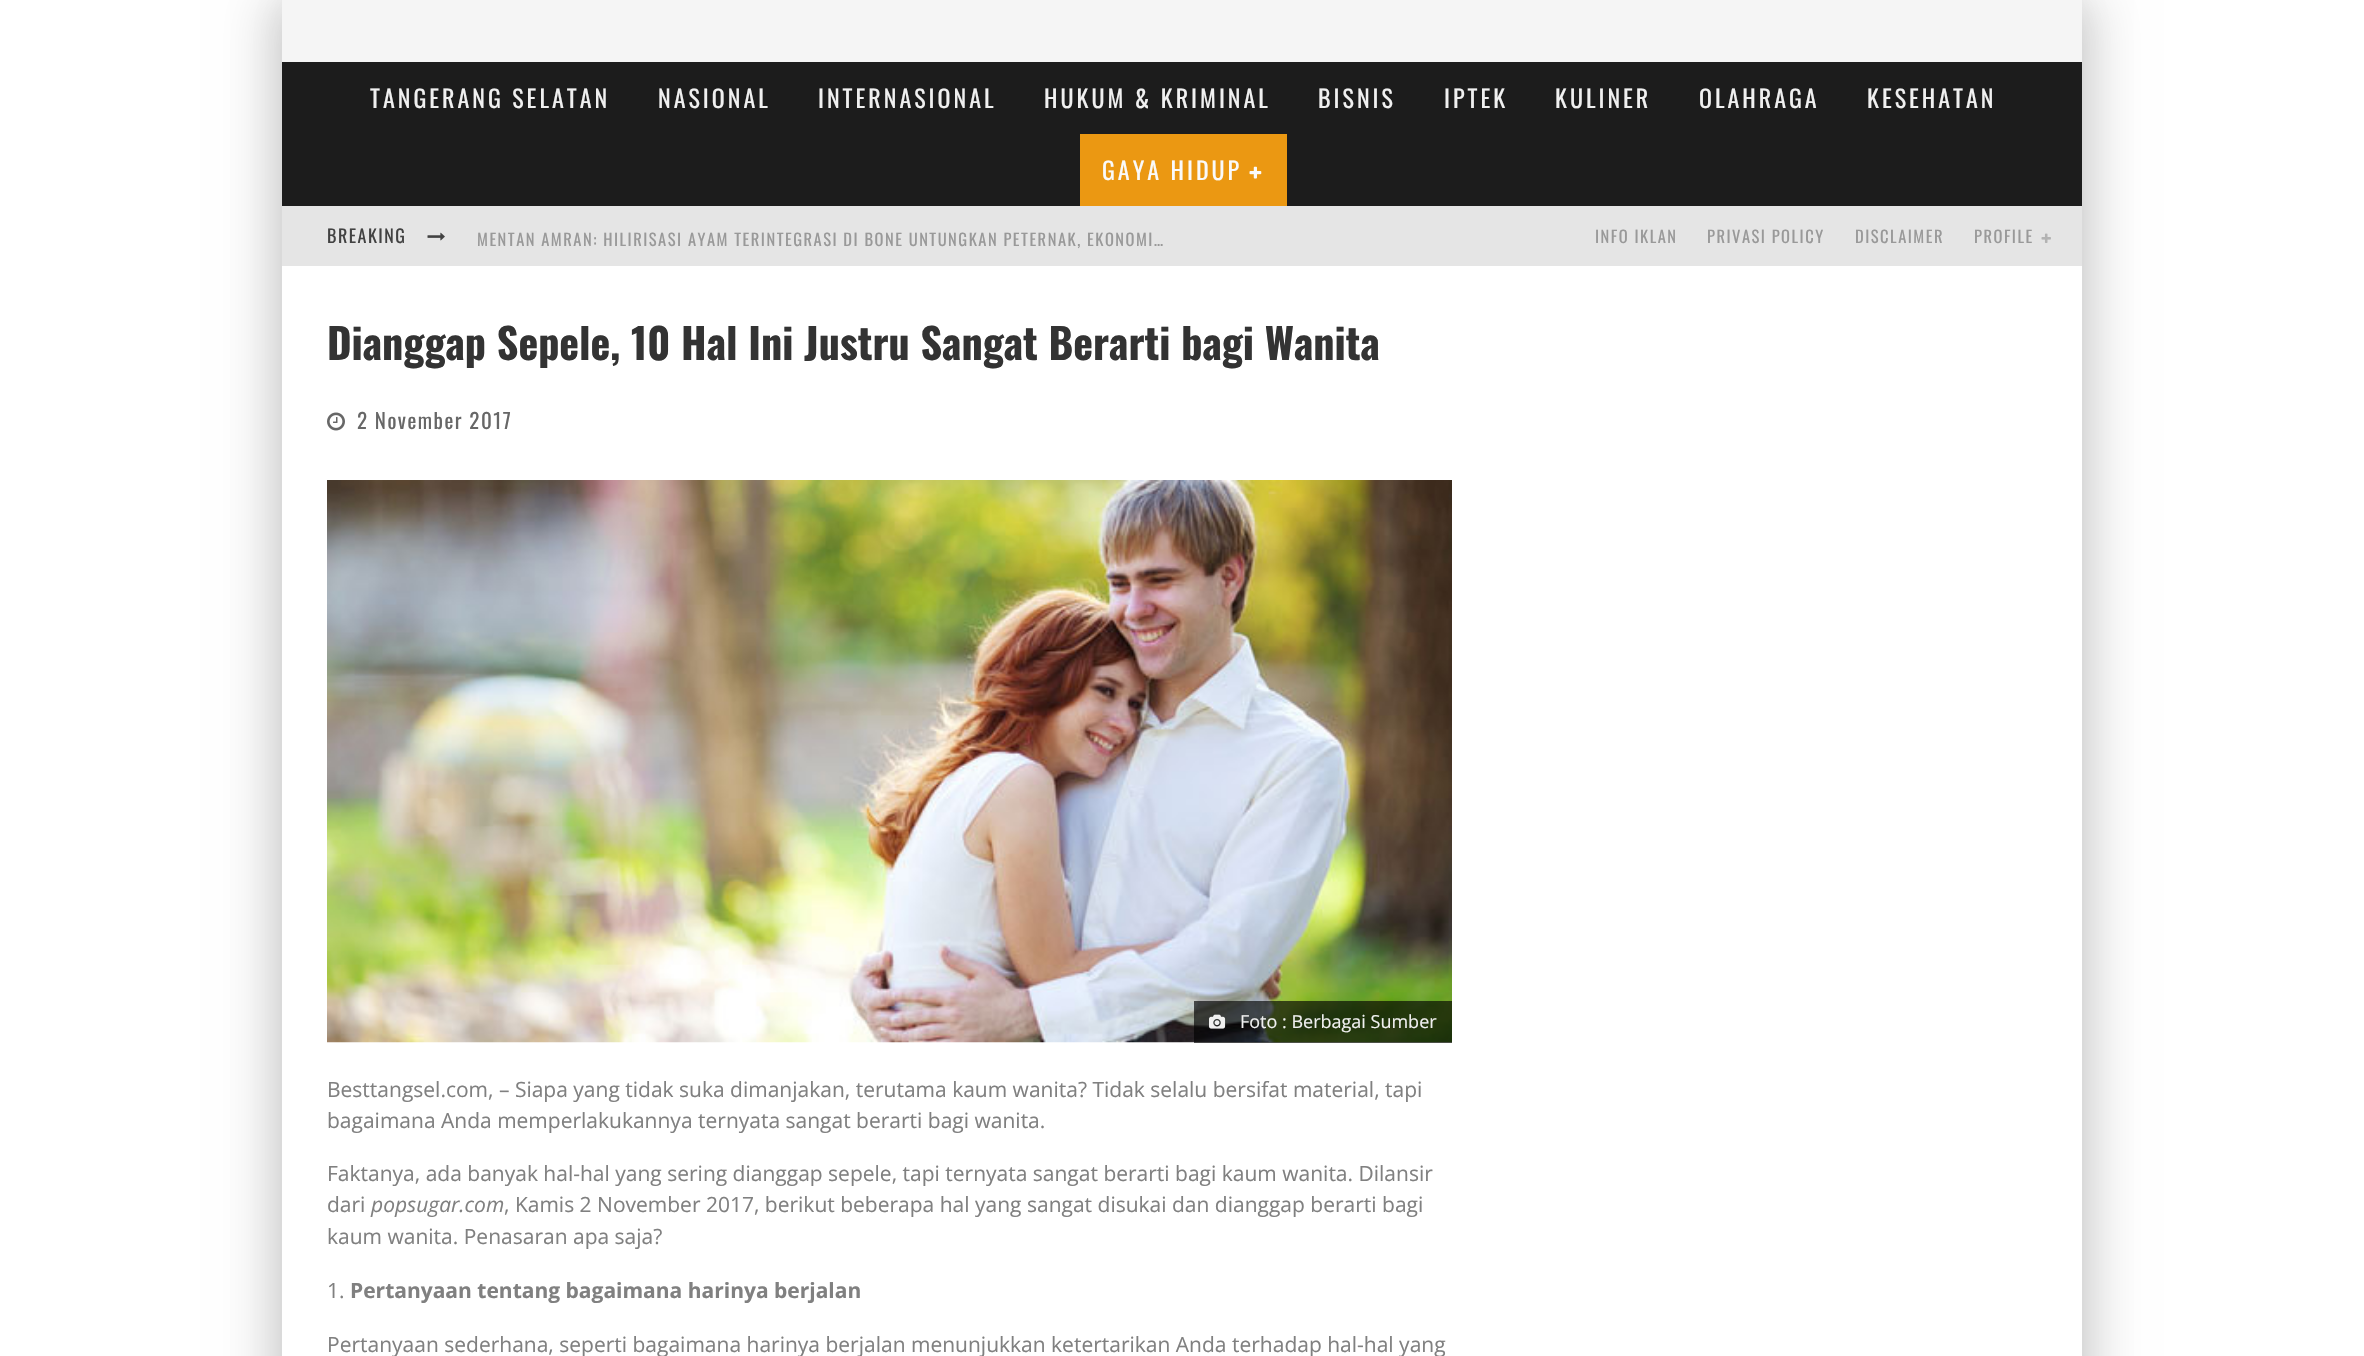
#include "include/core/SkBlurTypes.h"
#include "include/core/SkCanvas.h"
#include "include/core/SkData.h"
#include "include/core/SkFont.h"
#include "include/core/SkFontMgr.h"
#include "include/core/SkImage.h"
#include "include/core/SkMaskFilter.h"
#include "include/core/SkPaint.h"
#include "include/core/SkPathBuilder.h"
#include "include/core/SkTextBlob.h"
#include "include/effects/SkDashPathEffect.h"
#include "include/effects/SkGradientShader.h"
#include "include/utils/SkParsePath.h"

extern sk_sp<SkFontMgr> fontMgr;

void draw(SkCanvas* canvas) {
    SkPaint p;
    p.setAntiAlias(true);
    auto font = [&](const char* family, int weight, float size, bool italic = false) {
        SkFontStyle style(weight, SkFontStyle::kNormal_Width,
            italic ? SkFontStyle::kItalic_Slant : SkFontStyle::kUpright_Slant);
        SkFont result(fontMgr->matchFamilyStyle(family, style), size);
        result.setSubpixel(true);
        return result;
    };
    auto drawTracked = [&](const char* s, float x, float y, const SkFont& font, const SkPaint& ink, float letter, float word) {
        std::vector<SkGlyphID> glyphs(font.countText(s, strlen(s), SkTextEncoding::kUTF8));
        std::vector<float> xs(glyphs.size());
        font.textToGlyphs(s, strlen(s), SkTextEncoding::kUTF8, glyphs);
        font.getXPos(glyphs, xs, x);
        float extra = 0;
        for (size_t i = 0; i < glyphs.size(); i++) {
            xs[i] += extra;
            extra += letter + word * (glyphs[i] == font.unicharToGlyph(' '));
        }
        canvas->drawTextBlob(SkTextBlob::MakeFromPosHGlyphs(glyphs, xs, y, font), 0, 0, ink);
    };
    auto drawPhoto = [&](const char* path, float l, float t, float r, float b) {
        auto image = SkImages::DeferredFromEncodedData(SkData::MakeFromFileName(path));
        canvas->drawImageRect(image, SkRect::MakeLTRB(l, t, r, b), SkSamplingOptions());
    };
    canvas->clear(0xFFFFFFFF);
    canvas->save();
    canvas->clipPath(SkPathBuilder(SkPathFillType::kEvenOdd).moveTo(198, 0).lineTo(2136, 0).lineTo(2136, 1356).lineTo(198, 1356).close().moveTo(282, 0).lineTo(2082, 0).lineTo(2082, 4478).lineTo(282, 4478).close().detach(), true);
    p.setColor(0x26000000);
    p.setMaskFilter(SkMaskFilter::MakeBlur(kNormal_SkBlurStyle, 22.5f));
    canvas->drawRect(SkRect::MakeLTRB(267, 0, 2067, 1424), p);
    p.setMaskFilter(nullptr);
    canvas->restore();
    canvas->save();
    canvas->clipPath(SkPathBuilder(SkPathFillType::kEvenOdd).moveTo(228, 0).lineTo(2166, 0).lineTo(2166, 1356).lineTo(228, 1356).close().moveTo(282, 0).lineTo(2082, 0).lineTo(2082, 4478).lineTo(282, 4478).close().detach(), true);
    p.setMaskFilter(SkMaskFilter::MakeBlur(kNormal_SkBlurStyle, 22.5f));
    canvas->drawRect(SkRect::MakeLTRB(297, 0, 2097, 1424), p);
    p.setMaskFilter(nullptr);
    canvas->restore();
    p.setColor(0xFFF5F5F5);
    canvas->drawRect(SkRect::MakeLTRB(282, 0, 2082, 62), p);
    p.setColor(0xFF1C1C1C);
    canvas->drawRect(SkRect::MakeLTRB(282, 62, 2082, 206), p);
    auto font1 = font("Oswald", 400, 24);
    p.setColor(0xFFF0F0F0);
    {
        const struct { const char* s; float x, y; } items[] = {
            {"TANGERANG SELATAN", 370, 108},
            {"NASIONAL", 658, 108},
            {"INTERNASIONAL", 818, 108},
            {"HUKUM & KRIMINAL", 1044, 108},
            {"BISNIS", 1318, 108},
            {"IPTEK", 1444, 108},
            {"KULINER", 1555, 108},
            {"OLAHRAGA", 1699, 108},
            {"KESEHATAN", 1867, 108},
        };
        for (auto [s, x, y] : items) {
            drawTracked(s, x, y, font1, p, 3, 0);
        }
    }
    p.setColor(0xFFEB9812);
    canvas->drawRect(SkRect::MakeLTRB(1080, 134, 1287, 206), p);
    p.setColor(0xFFFAFAFA);
    drawTracked("GAYA HIDUP", 1102, 180, font1, p, 3, 0);
    drawPhoto("media/1.png", 1249, 166, 1262, 179);
    p.setColor(0xFFE5E5E5);
    canvas->drawRect(SkRect::MakeLTRB(282, 206, 2082, 266), p);
    auto font2 = font("Oswald", 400, 18);
    p.setColor(0xFF424242);
    drawTracked("BREAKING", 327, 243, font2, p, 1.5f, 0);
    drawPhoto("media/2.png", 427, 232, 445, 241);
    auto font3 = font("Oswald", 400, 16.5f);
    p.setColor(0xFF999999);
    {
        const struct { const char* s; float x, y; } items[] = {
            {"MENTAN AMRAN: HILIRISASI AYAM TERINTEGRASI DI BONE UNTUNGKAN PETERNAK, EKONOMI…", 477, 246},
            {"INFO IKLAN", 1595, 243},
            {"PRIVASI POLICY", 1707, 243},
            {"DISCLAIMER", 1855, 243},
            {"PROFILE", 1974, 243},
        };
        for (auto [s, x, y] : items) {
            drawTracked(s, x, y, font3, p, 1.5f, 0);
        }
    }
    drawPhoto("media/3.png", 2041, 233, 2051, 243);
    auto font4 = font("Oswald", 700, 42);
    p.setColor(0xFF333333);
    canvas->drawString("Dianggap Sepele, 10 Hal Ini Justru Sangat Berarti bagi Wanita", 327, 360, font4, p);
    drawPhoto("media/4.png", 327, 412, 345, 431);
    auto font5 = font("Oswald", 400, 21);
    p.setColor(0xFF676767);
    drawTracked("2 November 2017", 357, 429, font5, p, 1.5f, 0);
    drawPhoto("media/5.png", 327, 480, 1452, 1043);
    p.setColor(0xA6000000);
    canvas->drawRect(SkRect::MakeLTRB(1194, 1001, 1452, 1043), p);
    drawPhoto("media/6.png", 1209, 1014, 1226, 1029);
    auto font6 = font("Open Sans", 400, 18);
    p.setColor(0xFFF0F0F0);
    canvas->drawString("Foto : Berbagai Sumber", 1240, 1028, font6, p);
    auto font7 = font("Open Sans", 400, 21);
    p.setColor(0xFF808080);
    {
        const struct { const char* s; float x, y; } items[] = {
            {"Besttangsel.com, – Siapa yang tidak suka dimanjakan, terutama kaum wanita? Tidak selalu bersifat material, tapi", 327, 1097},
            {"bagaimana Anda memperlakukannya ternyata sangat berarti bagi wanita.", 327, 1128},
            {"Faktanya, ada banyak hal-hal yang sering dianggap sepele, tapi ternyata sangat berarti bagi kaum wanita. Dilansir", 327, 1181},
            {"dari", 327, 1212},
        };
        for (auto [s, x, y] : items) {
            canvas->drawString(s, x, y, font7, p);
        }
    }
    auto font8 = font("Open Sans", 400, 21, true);
    canvas->drawString("popsugar.com", 371, 1212, font8, p);
    {
        const struct { const char* s; float x, y; } items[] = {
            {", Kamis 2 November 2017, berikut beberapa hal yang sangat disukai dan dianggap berarti bagi", 504, 1212},
            {"kaum wanita. Penasaran apa saja?", 327, 1244},
            {"1.", 327, 1298},
        };
        for (auto [s, x, y] : items) {
            canvas->drawString(s, x, y, font7, p);
        }
    }
    auto font9 = font("Open Sans", 700, 21);
    canvas->drawString("Pertanyaan tentang bagaimana harinya berjalan", 350, 1298, font9, p);
    canvas->drawString("Pertanyaan sederhana, seperti bagaimana harinya berjalan menunjukkan ketertarikan Anda terhadap hal-hal yang", 327, 1352, font7, p);
}
